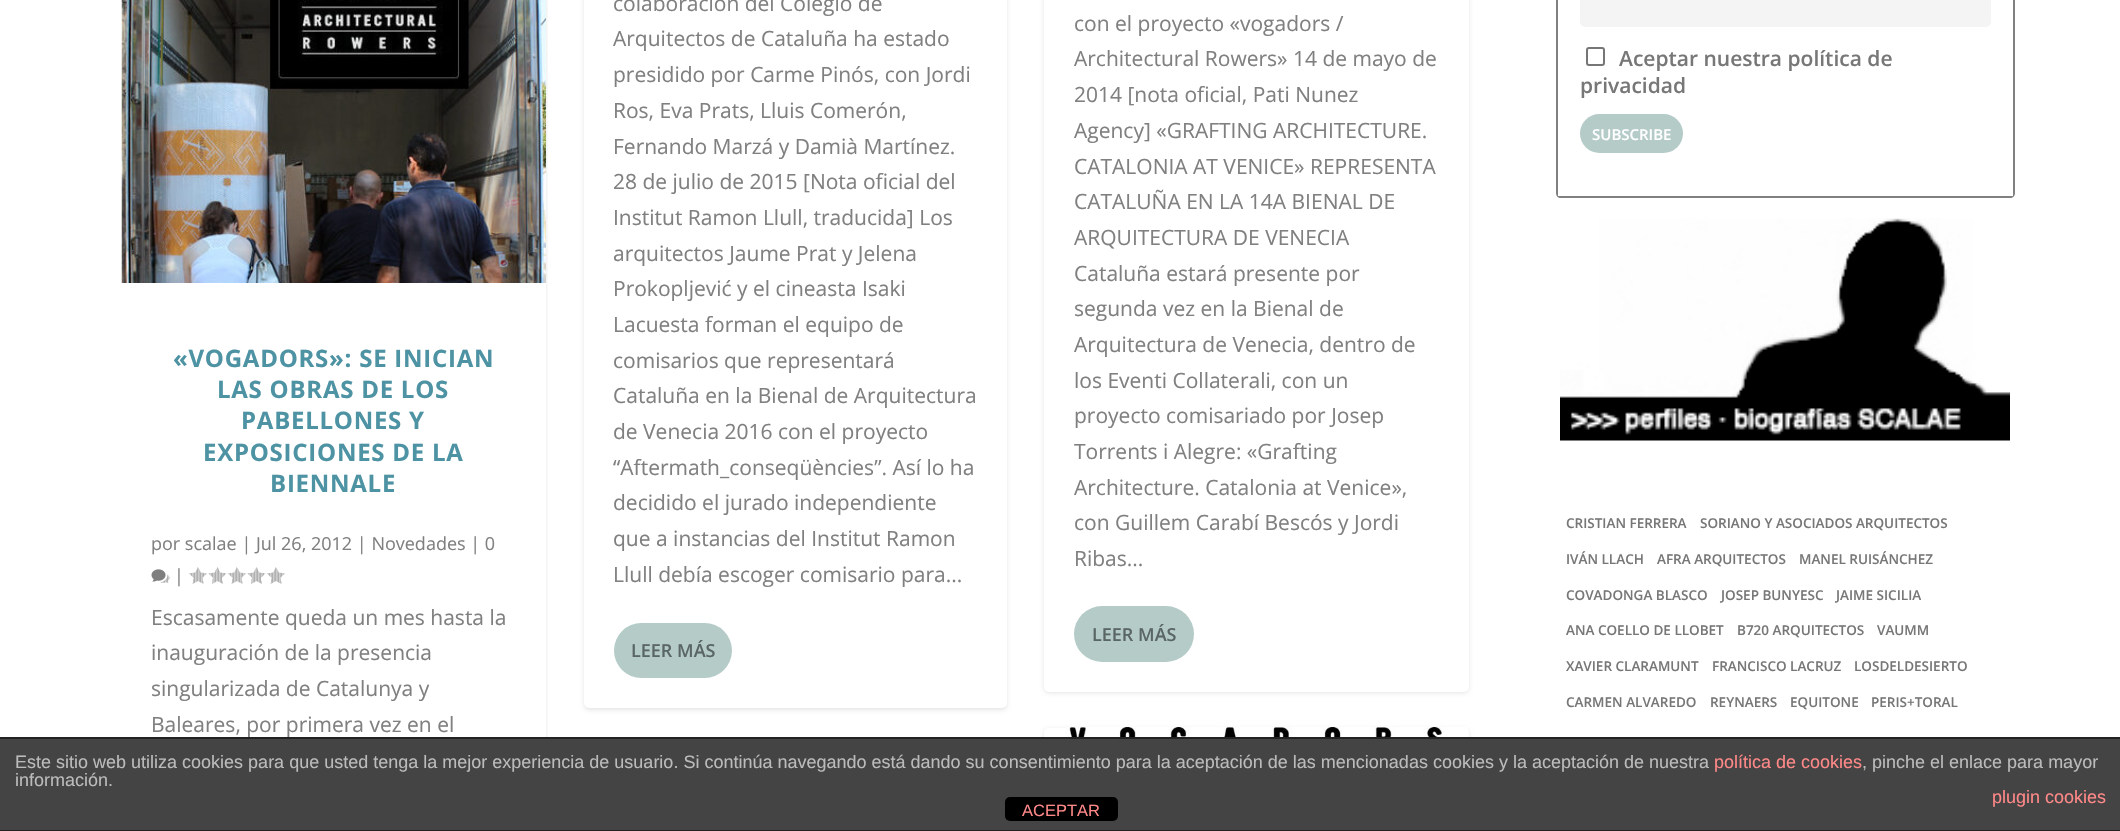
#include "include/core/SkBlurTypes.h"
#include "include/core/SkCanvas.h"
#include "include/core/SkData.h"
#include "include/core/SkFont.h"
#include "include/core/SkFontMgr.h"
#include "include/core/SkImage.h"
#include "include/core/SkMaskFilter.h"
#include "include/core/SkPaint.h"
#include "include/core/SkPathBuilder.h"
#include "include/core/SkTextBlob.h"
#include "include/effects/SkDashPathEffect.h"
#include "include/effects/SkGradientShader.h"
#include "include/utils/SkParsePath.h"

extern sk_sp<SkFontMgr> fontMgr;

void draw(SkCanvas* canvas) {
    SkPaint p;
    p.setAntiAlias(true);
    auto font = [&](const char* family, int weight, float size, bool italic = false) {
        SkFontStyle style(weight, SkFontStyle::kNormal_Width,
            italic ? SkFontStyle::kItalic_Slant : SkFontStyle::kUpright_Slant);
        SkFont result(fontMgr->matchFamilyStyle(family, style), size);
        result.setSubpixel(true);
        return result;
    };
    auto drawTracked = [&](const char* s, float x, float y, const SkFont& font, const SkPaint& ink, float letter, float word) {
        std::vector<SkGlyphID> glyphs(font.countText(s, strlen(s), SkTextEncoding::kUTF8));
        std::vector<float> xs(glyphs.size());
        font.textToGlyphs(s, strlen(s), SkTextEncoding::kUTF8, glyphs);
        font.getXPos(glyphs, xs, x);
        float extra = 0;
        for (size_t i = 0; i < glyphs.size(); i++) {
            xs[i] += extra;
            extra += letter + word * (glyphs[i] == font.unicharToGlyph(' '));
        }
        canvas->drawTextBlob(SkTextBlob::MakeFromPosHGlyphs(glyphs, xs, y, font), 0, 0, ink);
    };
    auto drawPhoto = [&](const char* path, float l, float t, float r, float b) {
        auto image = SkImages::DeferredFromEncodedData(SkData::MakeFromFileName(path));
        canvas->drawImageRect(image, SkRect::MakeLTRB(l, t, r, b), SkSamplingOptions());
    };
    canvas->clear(0xFFFFFFFF);
    canvas->save();
    canvas->clipRect(SkRect::MakeLTRB(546, 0, 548, 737));
    p.setColor(0x1A000000);
    p.setMaskFilter(SkMaskFilter::MakeBlur(kNormal_SkBlurStyle, 2));
    canvas->drawRoundRect(SkRect::MakeLTRB(122, -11, 546, 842), 5, 5, p);
    p.setMaskFilter(nullptr);
    canvas->restore();
    drawPhoto("media/1.png", 121, 0, 546, 283);
    auto font1 = font("Open Sans", 700, 24);
    p.setColor(0xFF4E93A3);
    {
        const struct { const char* s; float x, y; } items[] = {
            {"«VOGADORS»: SE INICIAN", 173, 367},
            {"LAS OBRAS DE LOS", 217, 398},
            {"PABELLONES Y", 241, 429},
            {"EXPOSICIONES DE LA", 203, 461},
            {"BIENNALE", 270, 492},
        };
        for (auto [s, x, y] : items) {
            drawTracked(s, x, y, font1, p, 0.75f, 0);
        }
    }
    auto font2 = font("Open Sans", 400, 18);
    p.setColor(0xFF808080);
    canvas->drawString("por scalae | Jul 26, 2012 | Novedades | 0", 151, 550, font2, p);
    drawPhoto("media/2.png", 151, 569, 170, 583);
    canvas->drawString("|", 174, 582, font2, p);
    drawPhoto("media/3.png", 189, 567, 207, 584);
    drawPhoto("media/4.png", 208, 567, 227, 584);
    drawPhoto("media/3.png", 228, 567, 246, 584);
    drawPhoto("media/4.png", 247, 567, 266, 584);
    drawPhoto("media/3.png", 267, 567, 285, 584);
    auto font3 = font("Open Sans", 400, 21);
    {
        const struct { const char* s; float x, y; } items[] = {
            {"Escasamente queda un mes hasta la", 151, 625},
            {"inauguración de la presencia", 151, 660},
            {"singularizada de Catalunya y", 151, 696},
            {"Baleares, por primera vez en el", 151, 732},
        };
        for (auto [s, x, y] : items) {
            canvas->drawString(s, x, y, font3, p);
        }
    }
    p.setColor(0x1A000000);
    p.setMaskFilter(SkMaskFilter::MakeBlur(kNormal_SkBlurStyle, 2));
    canvas->drawRoundRect(SkRect::MakeLTRB(584, -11, 1007, 710), 5, 5, p);
    p.setMaskFilter(nullptr);
    p.setColor(0xFFFFFFFF);
    canvas->drawRoundRect(SkRect::MakeLTRB(584, -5, 1007, 708), 5, 5, p);
    p.setColor(0xFF808080);
    {
        const struct { const char* s; float x, y; } items[] = {
            {"colaboración del Colegio de", 613, 11},
            {"Arquitectos de Cataluña ha estado", 613, 46},
            {"presidido por Carme Pinós, con Jordi", 613, 82},
            {"Ros, Eva Prats, Lluis Comerón,", 613, 118},
            {"Fernando Marzá y Damià Martínez.", 613, 154},
            {"28 de julio de 2015 [Nota oficial del", 613, 189},
            {"Institut Ramon Llull, traducida] Los", 613, 225},
            {"arquitectos Jaume Prat y Jelena", 613, 261},
            {"Prokopljević y el cineasta Isaki", 613, 296},
            {"Lacuesta forman el equipo de", 613, 332},
            {"comisarios que representará", 613, 368},
            {"Cataluña en la Bienal de Arquitectura", 613, 403},
            {"de Venecia 2016 con el proyecto", 613, 439},
            {"“Aftermath_conseqüències”. Así lo ha", 613, 475},
            {"decidido el jurado independiente", 613, 510},
            {"que a instancias del Institut Ramon", 613, 546},
            {"Llull debía escoger comisario para...", 613, 582},
        };
        for (auto [s, x, y] : items) {
            canvas->drawString(s, x, y, font3, p);
        }
    }
    p.setColor(0xFFB4CBC8);
    canvas->drawRoundRect(SkRect::MakeLTRB(614, 623, 732, 678), 27.5f, 27.5f, p);
    auto font4 = font("Open Sans", 600, 18);
    p.setColor(0xFF5A6664);
    canvas->drawString("LEER MÁS", 631, 657, font4, p);
    p.setColor(0x1A000000);
    p.setMaskFilter(SkMaskFilter::MakeBlur(kNormal_SkBlurStyle, 2));
    canvas->drawRoundRect(SkRect::MakeLTRB(1044, -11, 1469, 693), 5, 5, p);
    p.setMaskFilter(nullptr);
    p.setColor(0xFFFFFFFF);
    canvas->drawRoundRect(SkRect::MakeLTRB(1044, -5, 1469, 692), 5, 5, p);
    p.setColor(0xFF808080);
    {
        const struct { const char* s; float x, y; } items[] = {
            {"con el proyecto «vogadors /", 1074, 31},
            {"Architectural Rowers» 14 de mayo de", 1074, 66},
            {"2014 [nota oficial, Pati Nunez", 1074, 102},
            {"Agency] «GRAFTING ARCHITECTURE.", 1074, 138},
            {"CATALONIA AT VENICE» REPRESENTA", 1074, 174},
            {"CATALUÑA EN LA 14A BIENAL DE", 1074, 209},
            {"ARQUITECTURA DE VENECIA", 1074, 245},
            {"Cataluña estará presente por", 1074, 281},
            {"segunda vez en la Bienal de", 1074, 316},
            {"Arquitectura de Venecia, dentro de", 1074, 352},
            {"los Eventi Collaterali, con un", 1074, 388},
            {"proyecto comisariado por Josep", 1074, 423},
            {"Torrents i Alegre: «Grafting", 1074, 459},
            {"Architecture. Catalonia at Venice»,", 1074, 495},
            {"con Guillem Carabí Bescós y Jordi", 1074, 530},
            {"Ribas...", 1074, 566},
        };
        for (auto [s, x, y] : items) {
            canvas->drawString(s, x, y, font3, p);
        }
    }
    p.setColor(0xFFB4CBC8);
    canvas->drawRoundRect(SkRect::MakeLTRB(1074, 606, 1194, 662), 28, 28, p);
    p.setColor(0xFF5A6664);
    canvas->drawString("LEER MÁS", 1092, 641, font4, p);
    p.setColor(0x1A000000);
    p.setMaskFilter(SkMaskFilter::MakeBlur(kNormal_SkBlurStyle, 2));
    canvas->drawRoundRect(SkRect::MakeLTRB(1044, 729, 1469, 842), 5, 5, p);
    p.setMaskFilter(nullptr);
    p.setColor(0xFFFFFFFF);
    canvas->drawRoundRect(SkRect::MakeLTRB(1044, 728, 1469, 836), 5, 5, p);
    drawPhoto("media/5.png", 1066, 727, 1468, 737);
    p.setColor(0xFF808080);
    canvas->drawPath(SkPathBuilder(SkPathFillType::kEvenOdd).moveTo(1561, -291).cubicTo(1558, -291, 1556, -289, 1556, -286).lineTo(1556, 193).cubicTo(1556, 196, 1558, 198, 1561, 198).lineTo(2010, 198).cubicTo(2013, 198, 2015, 196, 2015, 193).lineTo(2015, -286).cubicTo(2015, -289, 2013, -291, 2010, -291).close().moveTo(1558, -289).lineTo(1558, 196).lineTo(2013, 196).lineTo(2013, -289).close().detach(), p);
    p.setColor(0xFFF4F4F4);
    canvas->drawRoundRect(SkRect::MakeLTRB(1580, -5, 1991, 27), 5, 5, p);
    p.setStyle(SkPaint::kStroke_Style);
    p.setStrokeWidth(2);
    p.setColor(0xFF767676);
    canvas->drawRoundRect(SkRect::MakeLTRB(1587, 48, 1604, 65), 2, 2, p);
    auto font5 = font("Open Sans", 600, 21);
    p.setStyle(SkPaint::kFill_Style);
    p.setColor(0xFF777777);
    canvas->drawString("Aceptar nuestra política de", 1619, 66, font5, p);
    canvas->drawString("privacidad", 1580, 93, font5, p);
    p.setColor(0xFFB4CBC8);
    canvas->drawRoundRect(SkRect::MakeLTRB(1580, 114, 1683, 153), 19.5f, 19.5f, p);
    auto font6 = font("Open Sans", 600, 15);
    p.setColor(0xFFFFFFFF);
    canvas->drawString("SUBSCRIBE", 1592, 140, font6, p);
    drawPhoto("media/6.png", 1560, 218, 2010, 441);
    auto font7 = font("Open Sans", 600, 13.5f);
    p.setColor(0xFF777777);
    {
        const struct { const char* s; float x, y; } items[] = {
            {"CRISTIAN FERRERA", 1566, 528},
            {"SORIANO Y ASOCIADOS ARQUITECTOS", 1700, 528},
            {"IVÁN LLACH", 1566, 564},
            {"AFRA ARQUITECTOS", 1657, 564},
            {"MANEL RUISÁNCHEZ", 1799, 564},
            {"COVADONGA BLASCO", 1566, 600},
            {"JOSEP BUNYESC", 1721, 600},
            {"JAIME SICILIA", 1836, 600},
            {"ANA COELLO DE LLOBET", 1566, 635},
            {"B720 ARQUITECTOS", 1737, 635},
            {"VAUMM", 1877, 635},
            {"XAVIER CLARAMUNT", 1566, 671},
            {"FRANCISCO LACRUZ", 1712, 671},
            {"LOSDELDESIERTO", 1854, 671},
            {"CARMEN ALVAREDO", 1566, 707},
            {"REYNAERS", 1710, 707},
            {"EQUITONE", 1790, 707},
            {"PERIS+TORAL", 1871, 707},
        };
        for (auto [s, x, y] : items) {
            canvas->drawString(s, x, y, font7, p);
        }
    }
    {
        const struct { float l, t, r, b; SkColor color; } items[] = {
            {0, 739, 2120, 830, 0xFF444444},
            {0, 737, 2120, 739, 0xFF222222},
            {0, 830, 2120, 831, 0xFF222222},
        };
        for (auto [l, t, r, b, color] : items) {
            p.setColor(color);
            canvas->drawRect(SkRect::MakeLTRB(l, t, r, b), p);
        }
    }
    auto font8 = font("Liberation Sans", 400, 18);
    p.setColor(0xFFBBBBBB);
    canvas->drawString("Este sitio web utiliza cookies para que usted tenga la mejor experiencia de usuario. Si continúa navegando está dando su consentimiento para la aceptación de las mencionadas cookies y la aceptación de nuestra", 15, 768, font8, p);
    p.setColor(0xFFFF8888);
    canvas->drawString("política de cookies", 1714, 768, font8, p);
    p.setColor(0xFFBBBBBB);
    canvas->drawString(", pinche el enlace para mayor", 1862, 768, font8, p);
    canvas->drawString("información.", 15, 786, font8, p);
    p.setColor(0xFFFF8888);
    canvas->drawString("plugin cookies", 1992, 803, font8, p);
    p.setColor(0xFF000000);
    canvas->drawRoundRect(SkRect::MakeLTRB(1005, 797, 1118, 821), 5, 5, p);
    auto font9 = font("Liberation Sans", 400, 16.5f);
    p.setColor(0xFFFF8888);
    canvas->drawString("ACEPTAR", 1022, 816, font9, p);
}
